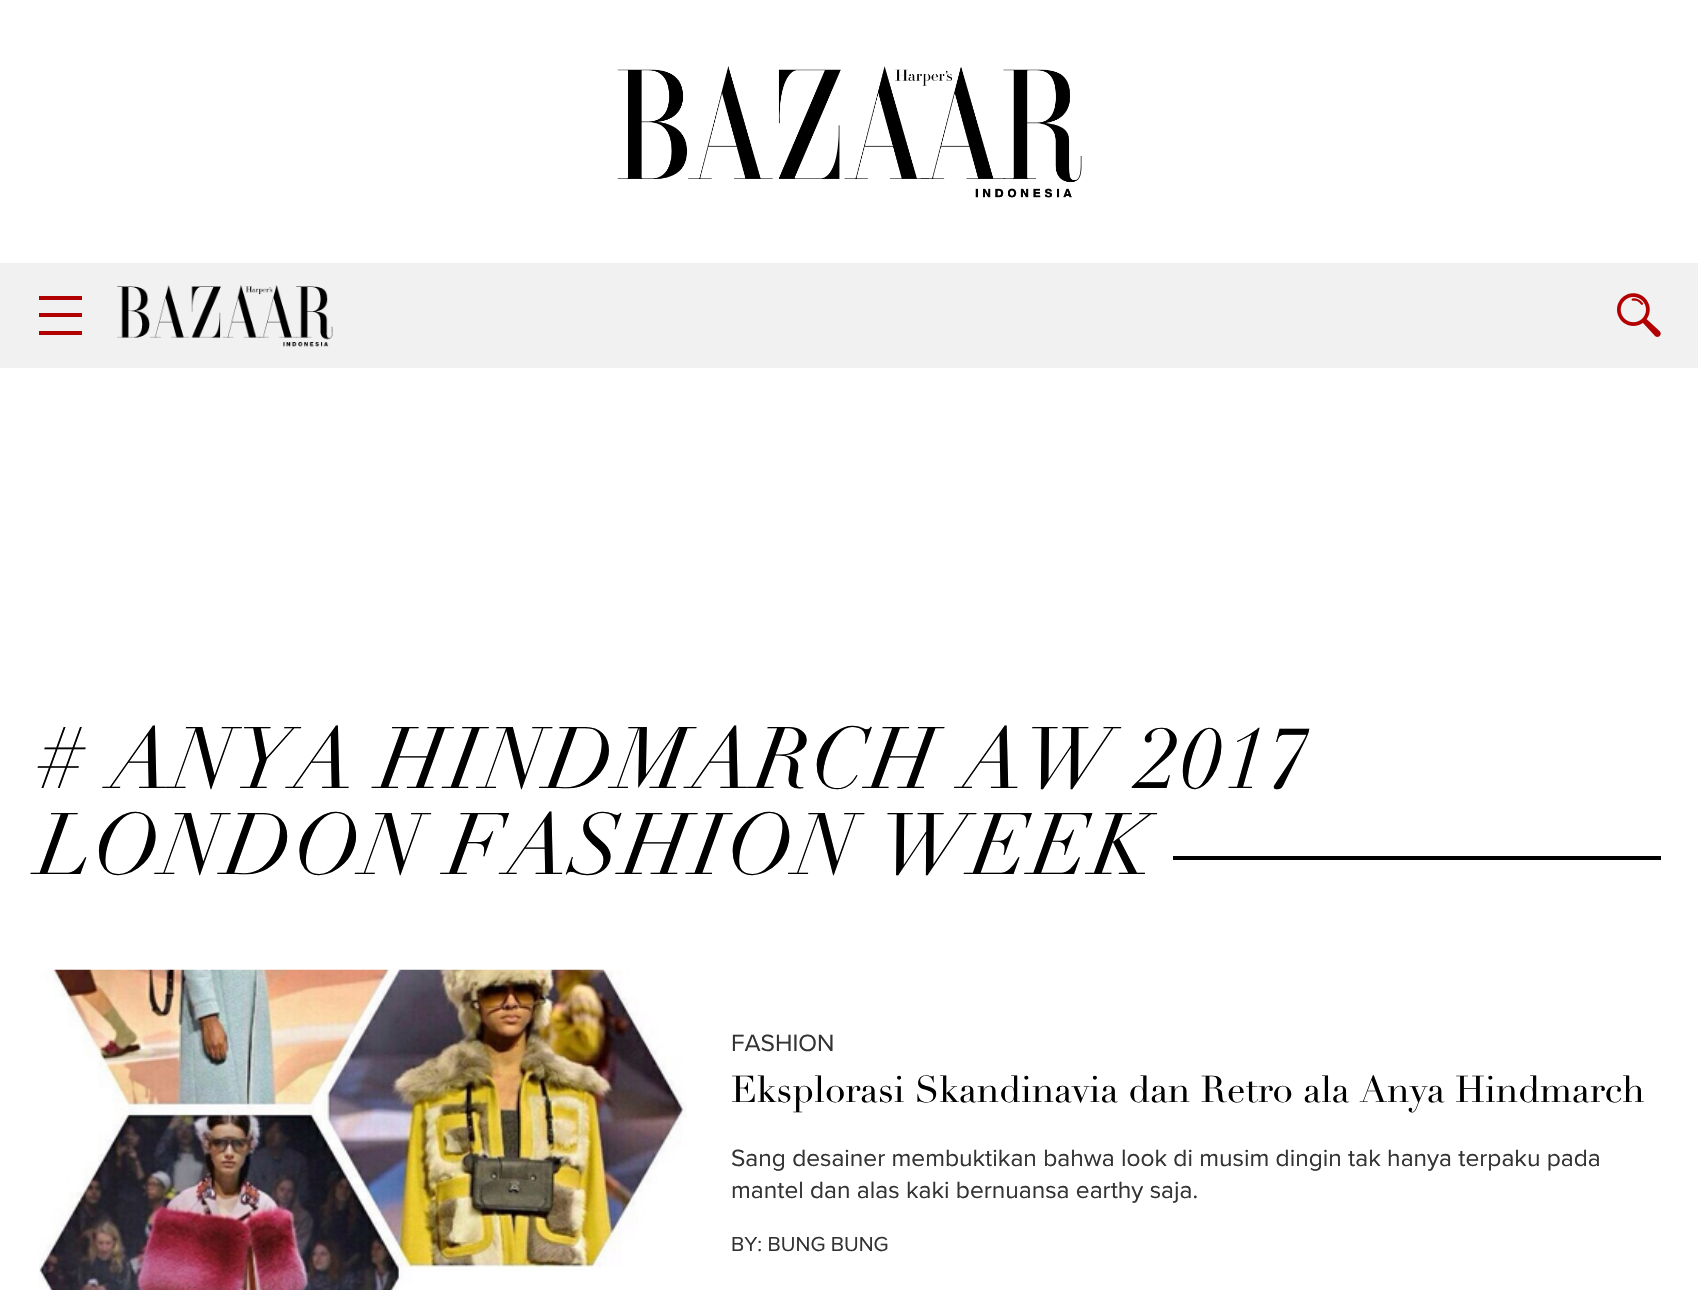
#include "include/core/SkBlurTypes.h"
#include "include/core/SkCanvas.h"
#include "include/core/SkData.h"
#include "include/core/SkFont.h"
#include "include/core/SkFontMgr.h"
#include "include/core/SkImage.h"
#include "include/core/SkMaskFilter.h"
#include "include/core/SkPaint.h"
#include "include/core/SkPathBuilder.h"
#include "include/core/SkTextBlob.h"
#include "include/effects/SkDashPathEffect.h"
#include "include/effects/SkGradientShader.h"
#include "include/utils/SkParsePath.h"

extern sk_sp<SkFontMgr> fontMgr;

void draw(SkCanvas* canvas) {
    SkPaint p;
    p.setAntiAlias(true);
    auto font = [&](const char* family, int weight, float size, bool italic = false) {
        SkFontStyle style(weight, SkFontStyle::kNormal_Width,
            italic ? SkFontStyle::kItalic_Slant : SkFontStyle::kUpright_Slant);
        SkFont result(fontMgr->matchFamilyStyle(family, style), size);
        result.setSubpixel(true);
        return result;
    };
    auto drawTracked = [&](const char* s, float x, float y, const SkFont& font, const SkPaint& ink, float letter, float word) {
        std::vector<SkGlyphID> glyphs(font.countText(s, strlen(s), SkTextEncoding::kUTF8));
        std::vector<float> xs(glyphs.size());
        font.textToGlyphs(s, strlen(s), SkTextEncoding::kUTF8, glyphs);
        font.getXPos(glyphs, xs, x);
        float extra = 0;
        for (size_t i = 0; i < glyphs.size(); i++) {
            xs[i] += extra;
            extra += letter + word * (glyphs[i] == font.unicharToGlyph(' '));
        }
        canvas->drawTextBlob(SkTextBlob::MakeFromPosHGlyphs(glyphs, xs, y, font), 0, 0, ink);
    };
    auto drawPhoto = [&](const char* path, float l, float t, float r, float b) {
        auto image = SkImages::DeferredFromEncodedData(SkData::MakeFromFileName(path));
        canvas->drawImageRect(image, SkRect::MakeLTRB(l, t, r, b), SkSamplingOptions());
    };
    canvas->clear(0xFFFFFFFF);
    drawPhoto("media/1.png", 617, 66, 1082, 198);
    {
        const struct { float l, t, r, b; SkColor color; } items[] = {
            {0, 263, 1698, 368, 0xFFF1F1F1},
            {39, 313, 82, 317, 0xFFB20000},
            {39, 296, 82, 300, 0xFFB20000},
            {39, 331, 82, 335, 0xFFB20000},
        };
        for (auto [l, t, r, b, color] : items) {
            p.setColor(color);
            canvas->drawRect(SkRect::MakeLTRB(l, t, r, b), p);
        }
    }
    drawPhoto("media/2.png", 117, 285, 333, 347);
    drawPhoto("media/3.png", 1617, 293, 1661, 337);
    auto font1 = font("Didot", 400, 85.75f, true);
    p.setColor(0xFF000000);
    drawTracked("# ANYA HINDMARCH AW 2017", 38, 788, font1, p, 1.75f, 0);
    drawTracked("LONDON FASHION WEEK", 38, 874, font1, p, 1.75f, 0);
    canvas->drawRect(SkRect::MakeLTRB(1173, 856, 1661, 860), p);
    drawPhoto("media/4.png", 39, 969, 687, 1290);
    auto font2 = font("Proxima Nova", 400, 24.5f);
    p.setColor(0xFF333333);
    canvas->drawString("FASHION", 731, 1051, font2, p);
    auto font3 = font("Didot", 400, 36.75f);
    p.setColor(0xFF000000);
    canvas->drawString("Eksplorasi Skandinavia dan Retro ala Anya Hindmarch", 731, 1102, font3, p);
    p.setColor(0xFF333333);
    canvas->drawString("Sang desainer membuktikan bahwa look di musim dingin tak hanya terpaku pada", 731, 1166, font2, p);
    canvas->drawString("mantel dan alas kaki bernuansa earthy saja.", 731, 1198, font2, p);
    auto font4 = font("Proxima Nova", 400, 21);
    canvas->drawString("BY: BUNG BUNG", 731, 1251, font4, p);
}
